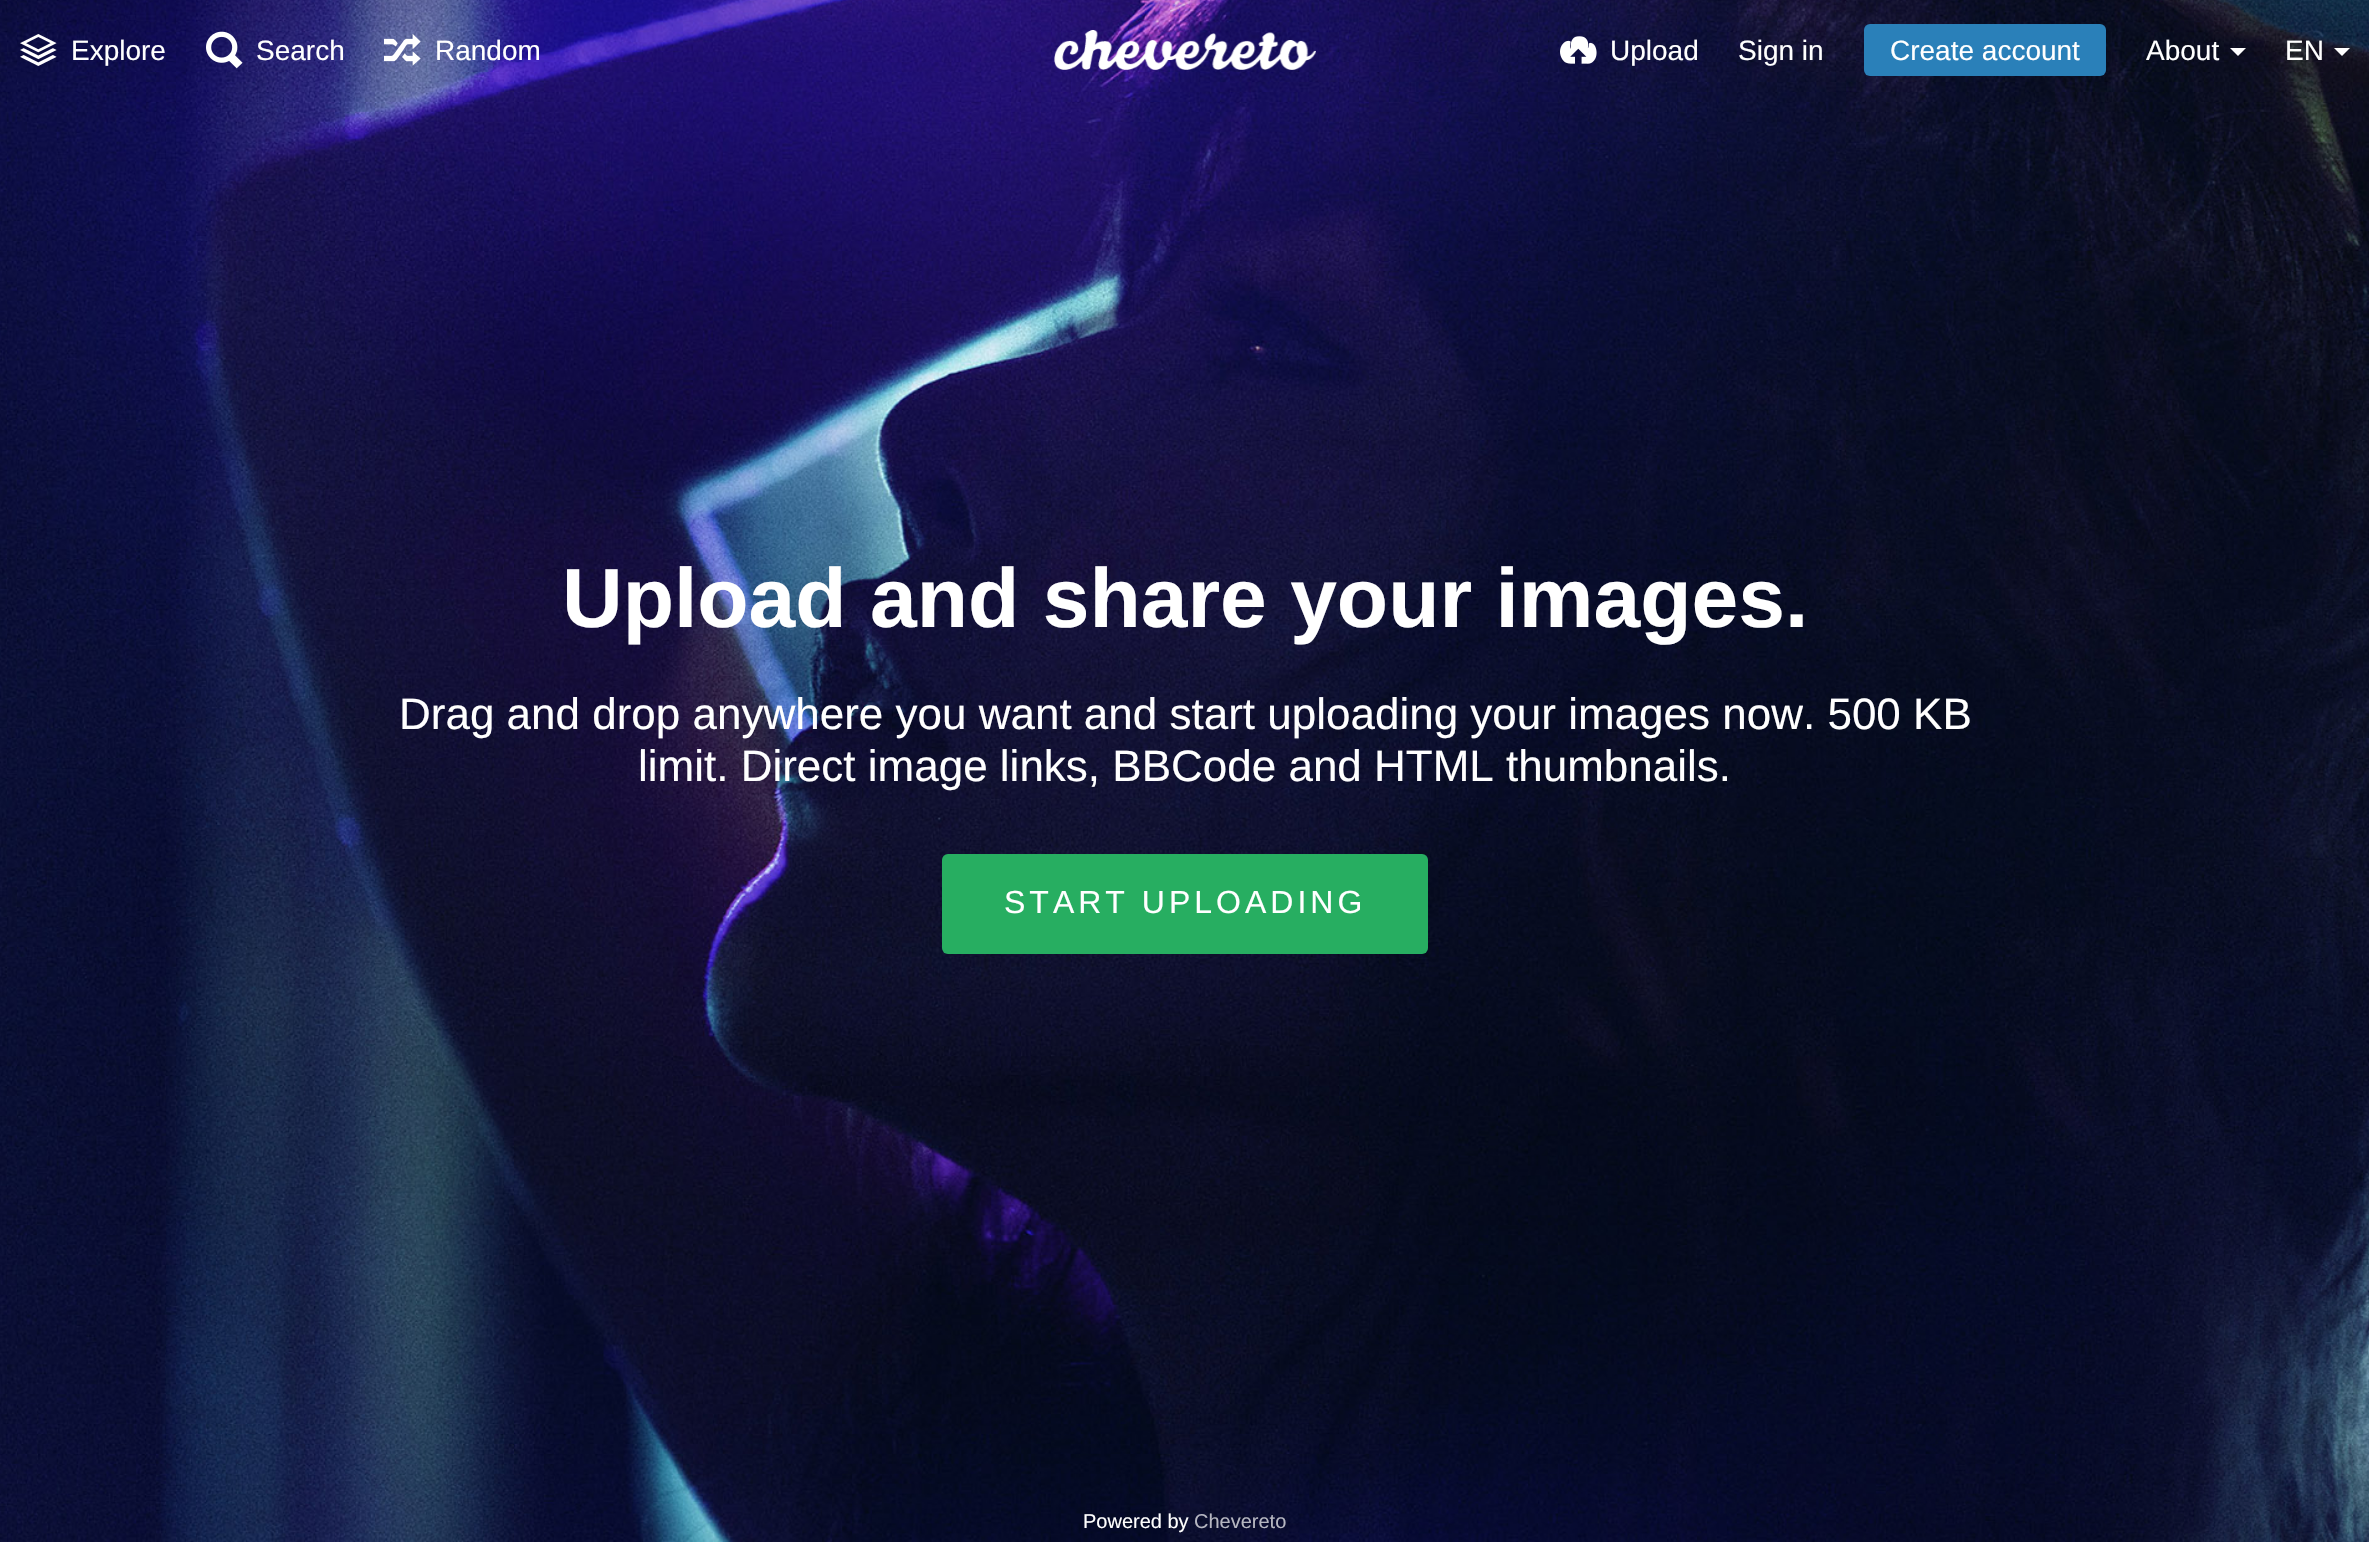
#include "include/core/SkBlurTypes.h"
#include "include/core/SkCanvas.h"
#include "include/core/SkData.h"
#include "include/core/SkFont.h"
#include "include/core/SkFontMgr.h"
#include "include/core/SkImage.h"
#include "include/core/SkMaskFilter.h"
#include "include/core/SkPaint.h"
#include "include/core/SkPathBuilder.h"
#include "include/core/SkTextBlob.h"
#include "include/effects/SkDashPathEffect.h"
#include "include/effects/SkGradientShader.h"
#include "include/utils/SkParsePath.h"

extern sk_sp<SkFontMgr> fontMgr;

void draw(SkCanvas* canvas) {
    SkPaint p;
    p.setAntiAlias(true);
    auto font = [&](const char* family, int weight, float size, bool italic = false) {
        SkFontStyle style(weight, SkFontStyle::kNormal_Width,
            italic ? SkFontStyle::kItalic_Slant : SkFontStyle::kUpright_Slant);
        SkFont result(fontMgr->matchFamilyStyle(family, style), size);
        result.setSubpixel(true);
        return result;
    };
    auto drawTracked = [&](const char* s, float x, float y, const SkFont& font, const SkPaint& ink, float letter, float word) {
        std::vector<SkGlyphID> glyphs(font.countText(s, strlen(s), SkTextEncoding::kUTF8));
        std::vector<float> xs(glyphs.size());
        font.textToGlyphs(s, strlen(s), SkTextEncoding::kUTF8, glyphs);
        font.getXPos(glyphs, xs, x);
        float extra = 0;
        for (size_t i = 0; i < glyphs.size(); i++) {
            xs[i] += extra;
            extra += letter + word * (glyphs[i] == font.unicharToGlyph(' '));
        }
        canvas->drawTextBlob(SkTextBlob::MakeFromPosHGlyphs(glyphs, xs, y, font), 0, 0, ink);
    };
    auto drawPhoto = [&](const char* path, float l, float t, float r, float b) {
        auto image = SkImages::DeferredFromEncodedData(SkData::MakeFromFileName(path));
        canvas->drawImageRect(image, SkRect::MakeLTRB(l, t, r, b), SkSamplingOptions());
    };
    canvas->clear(0xFFFFFFFF);
    drawPhoto("media/6.png", 0, 0, 2369, 1542);
    drawPhoto("media/1.png", 20, 34, 57, 66);
    auto font1 = font("Liberation Sans", 400, 28);
    p.setColor(0xFFFFFFFF);
    canvas->drawString("Explore", 71, 60, font1, p);
    drawPhoto("media/2.png", 206, 31, 243, 69);
    canvas->drawString("Search", 256, 60, font1, p);
    drawPhoto("media/3.png", 384, 34, 421, 66);
    canvas->drawString("Random", 435, 60, font1, p);
    drawPhoto("media/4.png", 1054, 30, 1316, 70);
    drawPhoto("media/5.png", 1560, 36, 1597, 64);
    canvas->drawString("Upload", 1610, 60, font1, p);
    canvas->drawString("Sign in", 1738, 60, font1, p);
    p.setColor(0xFF2A80B9);
    canvas->drawRoundRect(SkRect::MakeLTRB(1864, 24, 2106, 76), 6, 6, p);
    p.setColor(0xFFFFFFFF);
    canvas->drawString("Create account", 1890, 60, font1, p);
    canvas->drawString("About", 2146, 60, font1, p);
    canvas->drawPath(SkPathBuilder().moveTo(2230, 48).lineTo(2246, 48).lineTo(2238, 56).close().detach(), p);
    canvas->drawString("EN", 2285, 60, font1, p);
    canvas->drawPath(SkPathBuilder().moveTo(2334, 48).lineTo(2350, 48).lineTo(2342, 56).close().detach(), p);
    auto font2 = font("Liberation Sans", 700, 84);
    canvas->drawString("Upload and share your images.", 562, 627, font2, p);
    auto font3 = font("Liberation Sans", 400, 44);
    canvas->drawString("Drag and drop anywhere you want and start uploading your images now. 500 KB", 399, 729, font3, p);
    canvas->drawString("limit. Direct image links, BBCode and HTML thumbnails.", 638, 781, font3, p);
    p.setColor(0xFF27AE61);
    canvas->drawRoundRect(SkRect::MakeLTRB(942, 854, 1428, 954), 6, 6, p);
    auto font4 = font("Liberation Sans", 400, 32);
    p.setColor(0xFFFFFFFF);
    drawTracked("START UPLOADING", 1004, 913, font4, p, 4, 0);
    auto font5 = font("Liberation Sans", 400, 20);
    canvas->drawString("Powered by", 1083, 1528, font5, p);
    p.setColor(0xFFB6B7C1);
    canvas->drawString("Chevereto", 1194, 1528, font5, p);
}
